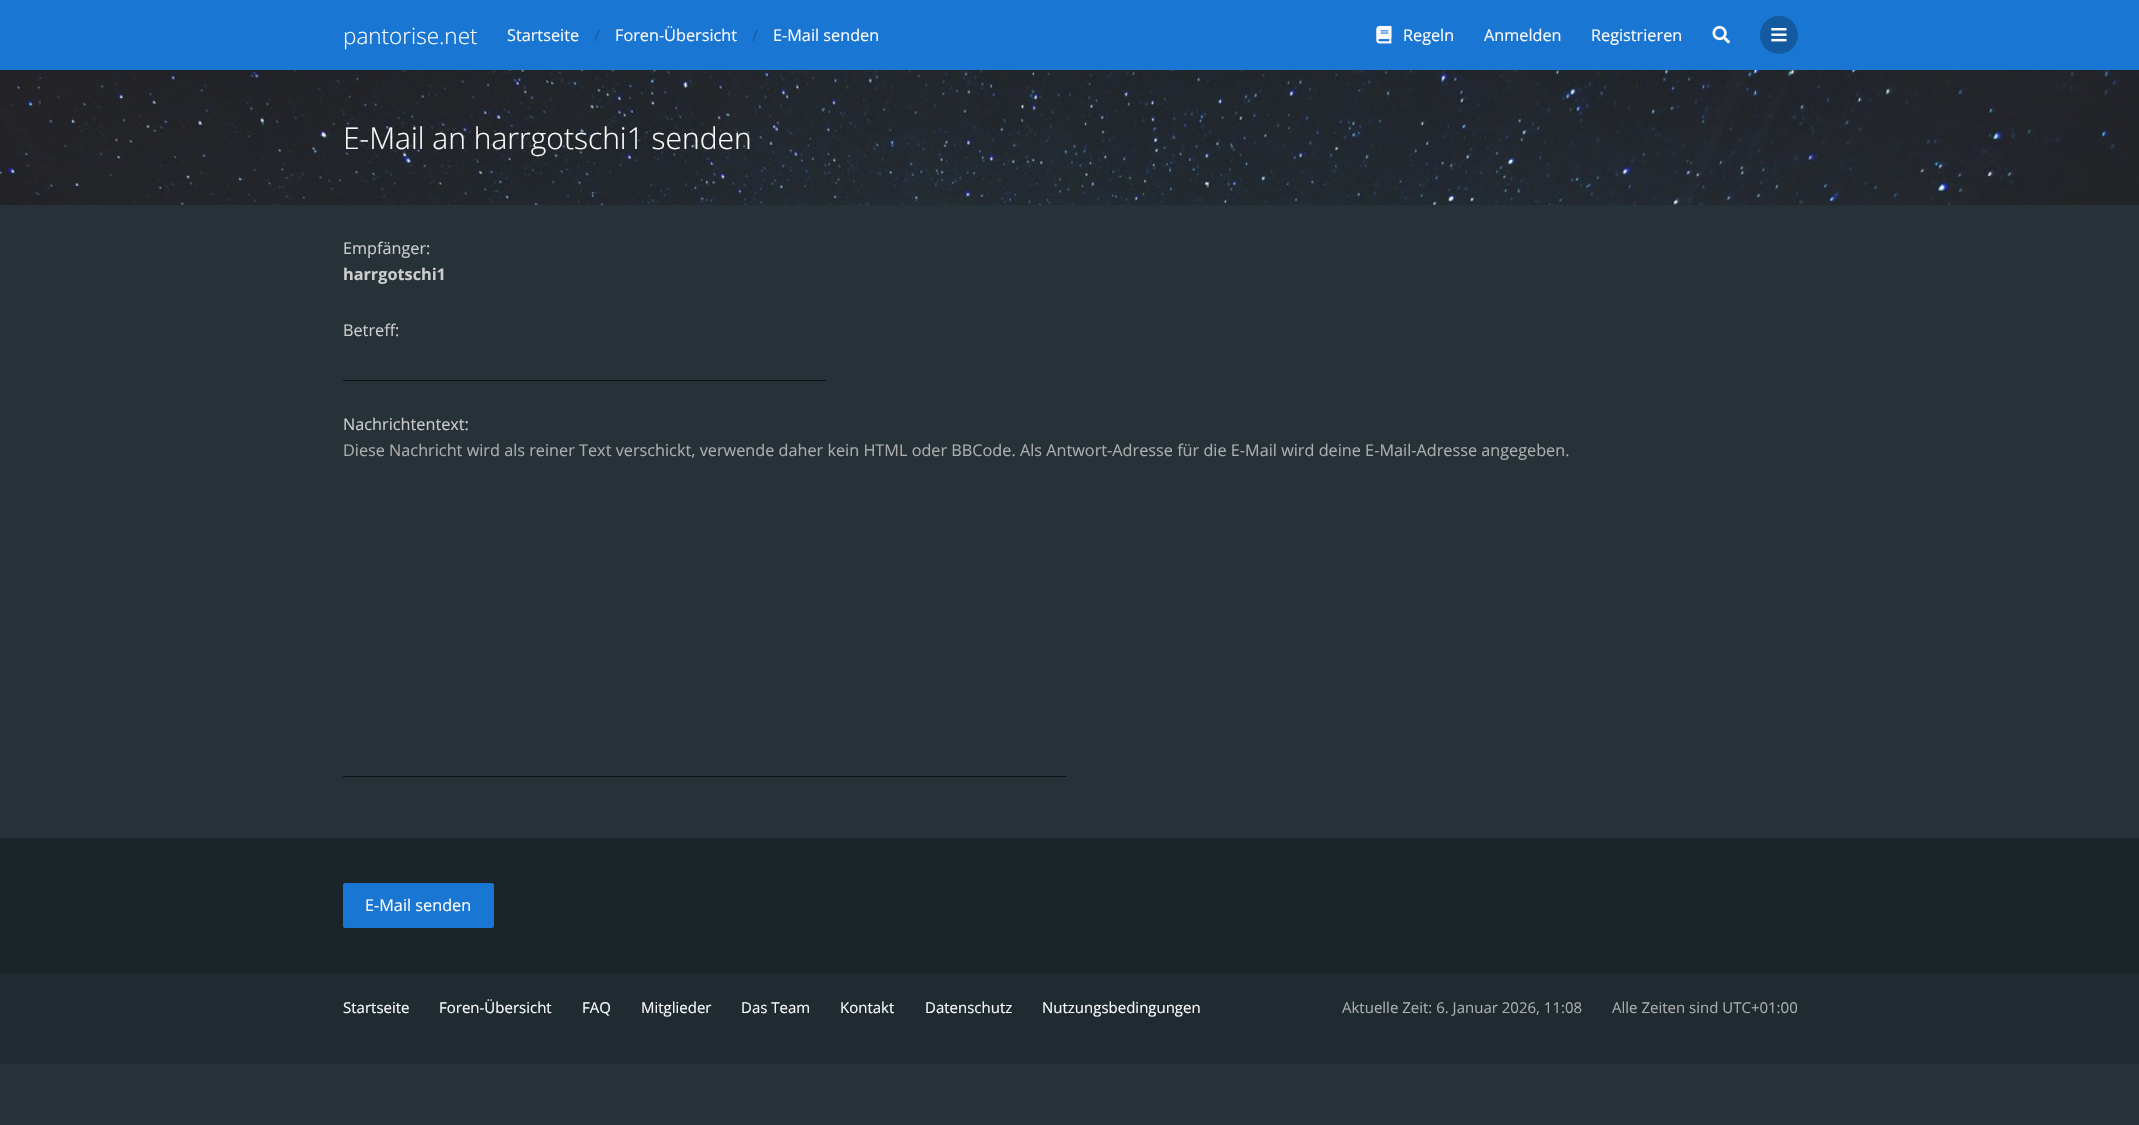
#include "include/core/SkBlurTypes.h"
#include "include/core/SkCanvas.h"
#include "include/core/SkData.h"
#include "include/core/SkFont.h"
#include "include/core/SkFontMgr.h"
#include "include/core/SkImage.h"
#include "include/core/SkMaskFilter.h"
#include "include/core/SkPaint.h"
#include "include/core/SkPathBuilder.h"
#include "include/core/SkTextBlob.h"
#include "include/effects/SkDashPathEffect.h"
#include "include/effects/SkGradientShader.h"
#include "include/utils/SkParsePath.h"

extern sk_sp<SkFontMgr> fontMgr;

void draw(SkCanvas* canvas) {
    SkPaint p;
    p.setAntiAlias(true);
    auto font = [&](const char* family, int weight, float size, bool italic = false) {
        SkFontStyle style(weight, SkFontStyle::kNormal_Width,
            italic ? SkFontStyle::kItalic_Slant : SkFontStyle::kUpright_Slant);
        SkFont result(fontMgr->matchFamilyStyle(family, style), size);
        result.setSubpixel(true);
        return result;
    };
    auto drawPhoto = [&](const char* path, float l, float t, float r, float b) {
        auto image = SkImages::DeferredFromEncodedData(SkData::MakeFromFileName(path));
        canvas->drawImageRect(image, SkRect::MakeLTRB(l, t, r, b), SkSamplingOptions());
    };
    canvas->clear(0xFF263238);
    p.setColor(0xFF1976D2);
    canvas->drawRect(SkRect::MakeLTRB(0, 0, 2139, 70), p);
    auto font1 = font("Open Sans", 300, 22.5f);
    p.setColor(0xFFFAFAFA);
    canvas->drawString("pantorise.net", 343, 44, font1, p);
    auto font2 = font("Open Sans", 400, 16.25f);
    canvas->drawString("Startseite", 507, 41, font2, p);
    p.setColor(0xFF135AA0);
    canvas->drawString("/", 594, 41, font2, p);
    p.setColor(0xFFFAFAFA);
    canvas->drawString("Foren-Übersicht", 615, 41, font2, p);
    p.setColor(0xFF135AA0);
    canvas->drawString("/", 752, 41, font2, p);
    p.setColor(0xFFFAFAFA);
    canvas->drawString("E-Mail senden", 773, 41, font2, p);
    drawPhoto("media/1.png", 1376, 25, 1392, 44);
    {
        const struct { const char* s; float x, y; } items[] = {
            {"Regeln", 1403, 41},
            {"Anmelden", 1484, 41},
            {"Registrieren", 1591, 41},
        };
        for (auto [s, x, y] : items) {
            canvas->drawString(s, x, y, font2, p);
        }
    }
    drawPhoto("media/2.png", 1712, 25, 1730, 44);
    p.setColor(0xFF135AA0);
    canvas->drawCircle(1779, 35, 19, p);
    drawPhoto("media/3.png", 1771, 28, 1787, 42);
    drawPhoto("media/4.png", 0, 70, 2139, 205);
    auto font3 = font("Open Sans", 300, 30);
    p.setColor(0xFFFAFAFA);
    canvas->drawString("E-Mail an harrgotschi1 senden", 343, 149, font3, p);
    p.setColor(0xFFCCCCCC);
    canvas->drawString("Empfänger:", 343, 254, font2, p);
    auto font4 = font("Open Sans", 700, 16.25f);
    canvas->drawString("harrgotschi1", 343, 280, font4, p);
    canvas->drawString("Betreff:", 343, 336, font2, p);
    p.setColor(0xFF0D1113);
    canvas->drawRect(SkRect::MakeLTRB(343, 380, 826, 381), p);
    p.setColor(0xFFCCCCCC);
    canvas->drawString("Nachrichtentext:", 343, 430, font2, p);
    p.setColor(0xFFADADAD);
    canvas->drawString("Diese Nachricht wird als reiner Text verschickt, verwende daher kein HTML oder BBCode. Als Antwort-Adresse für die E-Mail wird deine E-Mail-Adresse angegeben.", 343, 456, font2, p);
    p.setColor(0xFF0D1113);
    canvas->drawRect(SkRect::MakeLTRB(343, 776, 1066, 777), p);
    p.setColor(0xFF1B2428);
    canvas->drawRect(SkRect::MakeLTRB(0, 838, 2139, 973), p);
    p.setColor(0xFF1976D2);
    canvas->drawRoundRect(SkRect::MakeLTRB(343, 883, 494, 928), 2.5f, 2.5f, p);
    p.setColor(0xFFFAFAFA);
    canvas->drawString("E-Mail senden", 365, 911, font2, p);
    p.setColor(0xFF1F2B30);
    canvas->drawRect(SkRect::MakeLTRB(0, 973, 2139, 1064), p);
    auto font5 = font("Open Sans", 400, 15);
    p.setColor(0xFFFAFAFA);
    {
        const struct { const char* s; float x, y; } items[] = {
            {"Startseite", 343, 1013},
            {"Foren-Übersicht", 439, 1013},
            {"FAQ", 582, 1013},
            {"Mitglieder", 641, 1013},
            {"Das Team", 741, 1013},
            {"Kontakt", 840, 1013},
            {"Datenschutz", 925, 1013},
            {"Nutzungsbedingungen", 1042, 1013},
        };
        for (auto [s, x, y] : items) {
            canvas->drawString(s, x, y, font5, p);
        }
    }
    p.setColor(0xFFADADAD);
    canvas->drawString("Aktuelle Zeit: 6. Januar 2026, 11:08", 1342, 1013, font5, p);
    canvas->drawString("Alle Zeiten sind UTC+01:00", 1612, 1013, font5, p);
}
